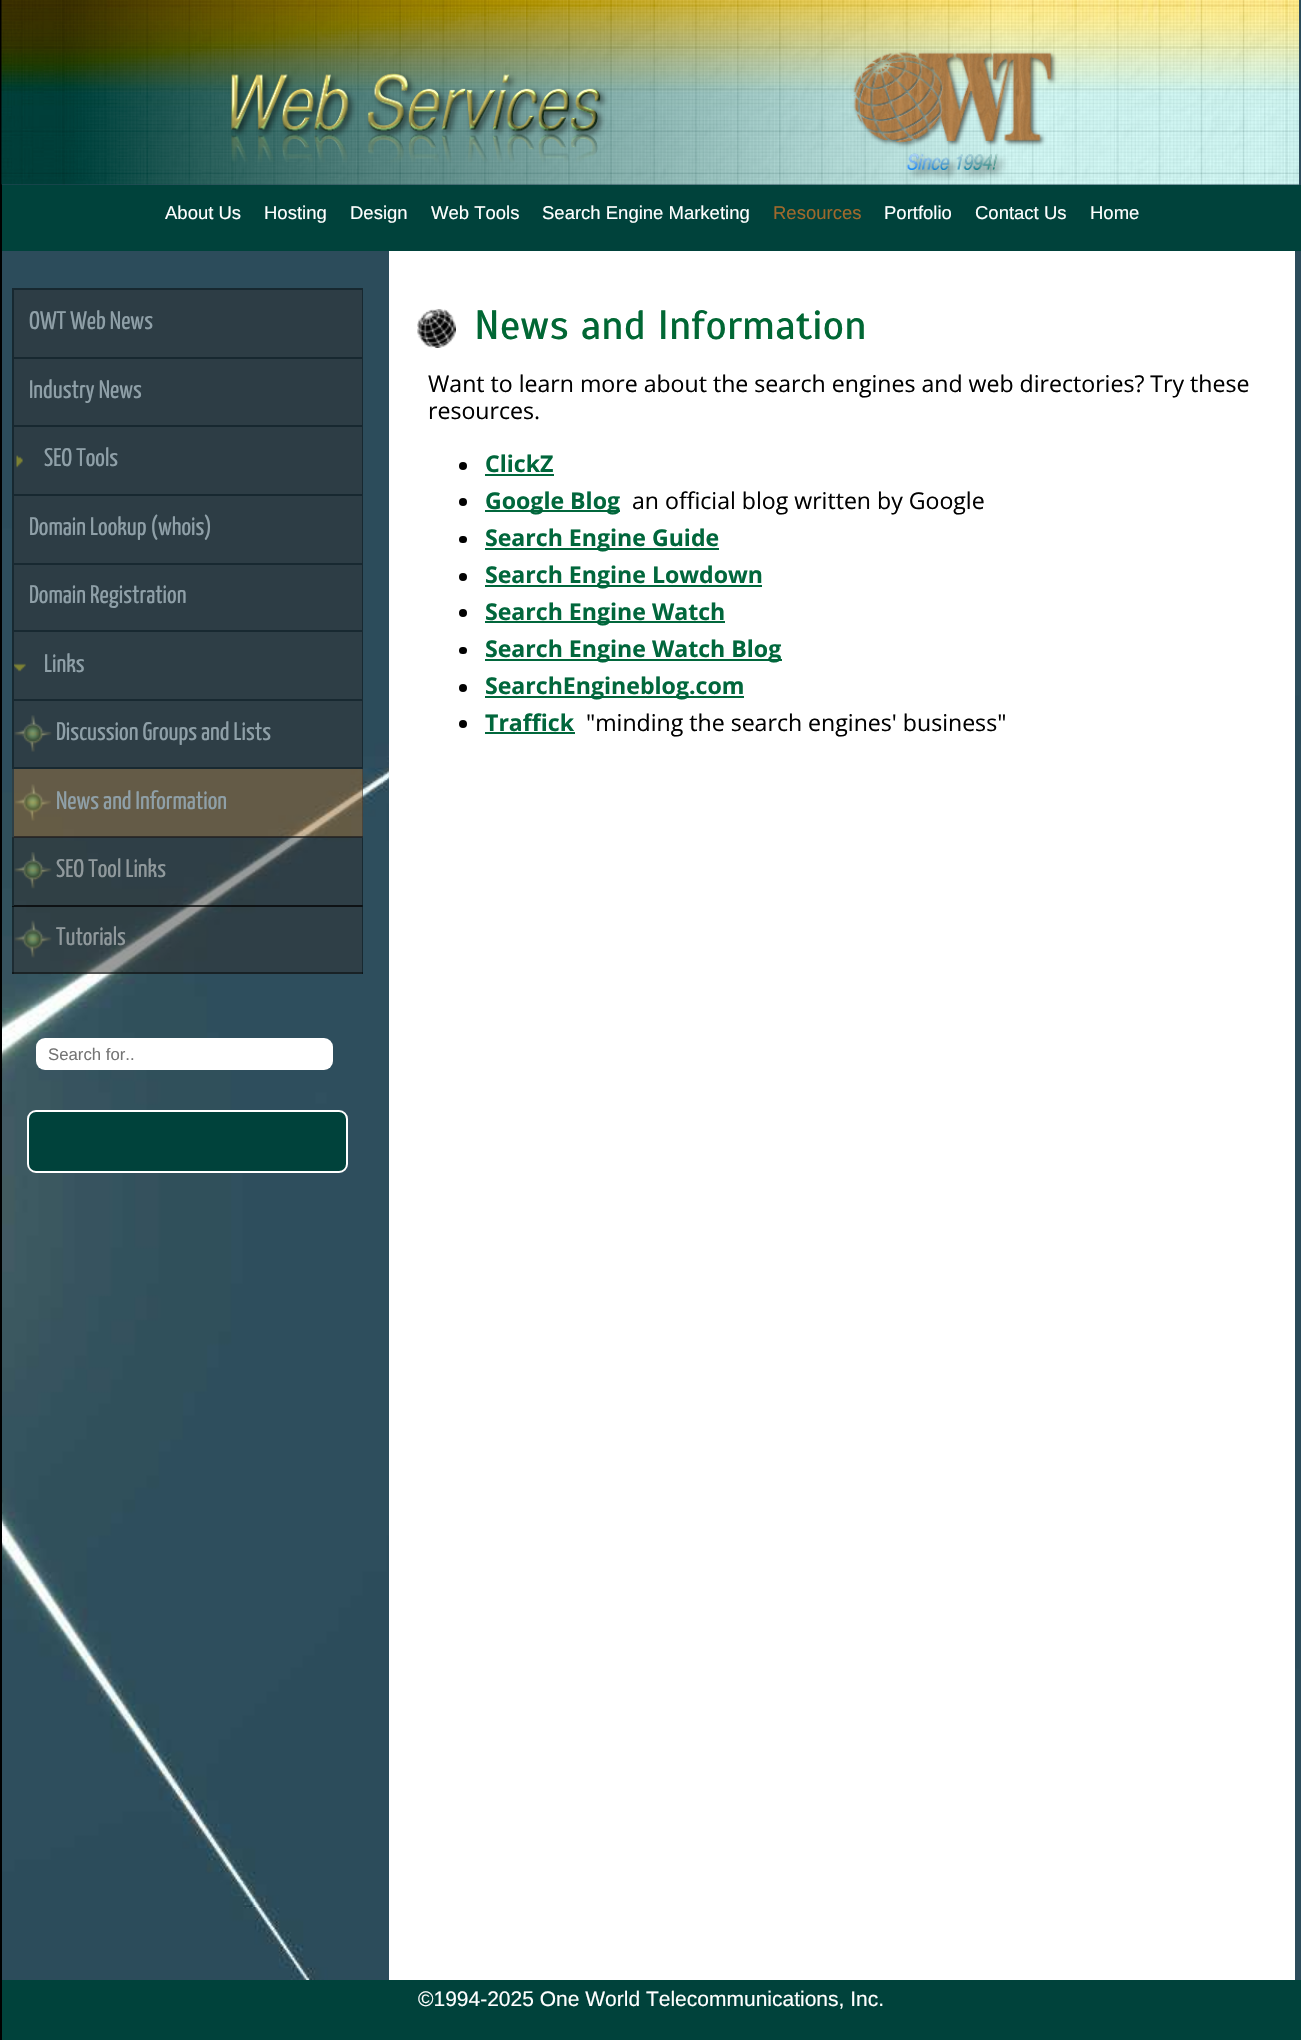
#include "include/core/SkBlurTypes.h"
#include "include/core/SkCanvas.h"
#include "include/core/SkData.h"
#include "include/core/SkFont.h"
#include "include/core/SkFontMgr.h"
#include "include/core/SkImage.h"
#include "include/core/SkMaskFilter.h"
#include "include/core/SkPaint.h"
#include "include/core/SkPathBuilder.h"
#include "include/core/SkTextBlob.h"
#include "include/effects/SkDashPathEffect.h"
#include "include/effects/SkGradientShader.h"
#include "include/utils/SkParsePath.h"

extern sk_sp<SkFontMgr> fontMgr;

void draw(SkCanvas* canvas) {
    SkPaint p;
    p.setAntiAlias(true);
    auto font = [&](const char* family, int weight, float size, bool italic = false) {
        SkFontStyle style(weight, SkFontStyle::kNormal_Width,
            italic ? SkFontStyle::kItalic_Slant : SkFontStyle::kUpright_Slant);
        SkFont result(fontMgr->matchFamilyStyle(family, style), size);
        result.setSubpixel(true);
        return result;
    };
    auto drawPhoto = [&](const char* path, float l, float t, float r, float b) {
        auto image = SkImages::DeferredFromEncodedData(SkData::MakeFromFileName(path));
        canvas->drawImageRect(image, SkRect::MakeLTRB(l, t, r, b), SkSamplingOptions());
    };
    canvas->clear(0xFFFFFFFF);
    drawPhoto("media/1.png", 2, 0, 1301, 1980);
    p.setColor(0xFF000000);
    canvas->drawRect(SkRect::MakeLTRB(0, 0, 2, 2040), p);
    drawPhoto("media/2.png", 1, 0, 1299, 185);
    drawPhoto("media/3.png", 230, 51, 1057, 180);
    p.setColor(0xFF00423B);
    canvas->drawRect(SkRect::MakeLTRB(2, 185, 1301, 251), p);
    auto font1 = font("Liberation Sans", 400, 18.5f);
    p.setColor(0xFFFFFFFF);
    {
        const struct { const char* s; float x, y; } items[] = {
            {"About Us", 165, 219},
            {"Hosting", 264, 219},
            {"Design", 350, 219},
            {"Web Tools", 431, 219},
            {"Search Engine Marketing", 542, 219},
        };
        for (auto [s, x, y] : items) {
            canvas->drawString(s, x, y, font1, p);
        }
    }
    p.setColor(0xFF9F692C);
    canvas->drawString("Resources", 773, 219, font1, p);
    p.setColor(0xFFFFFFFF);
    {
        const struct { const char* s; float x, y; } items[] = {
            {"Portfolio", 884, 219},
            {"Contact Us", 975, 219},
            {"Home", 1090, 219},
        };
        for (auto [s, x, y] : items) {
            canvas->drawString(s, x, y, font1, p);
        }
    }
    {
        const struct { float l, t, r, b; SkColor color; } items[] = {
            {389, 251, 1295, 1980, 0xFFFFFFFF},
            {14, 290, 362, 357, 0xFF2D3D45},
            {12, 288, 363, 290, 0xFF172830},
            {12, 357, 363, 359, 0xFF172830},
            {12, 425, 363, 427, 0xFF172830},
            {12, 494, 363, 496, 0xFF172830},
            {12, 563, 363, 565, 0xFF182931},
            {12, 630, 363, 632, 0xFF182931},
            {12, 699, 363, 701, 0xFF182931},
            {14, 769, 363, 837, 0x789F692C},
            {14, 837, 362, 905, 0x782E2C2C},
            {12, 836, 363, 838, 0x78000000},
            {14, 905, 362, 974, 0x782E2C2C},
            {12, 905, 363, 907, 0x78000000},
            {362, 905, 363, 974, 0xFF182931},
            {362, 836, 363, 906, 0xFF182931},
            {362, 767, 363, 837, 0x782E2C2C},
            {362, 699, 363, 768, 0xFF182931},
            {362, 630, 363, 701, 0xFF172830},
            {362, 563, 363, 632, 0xFF172830},
            {362, 494, 363, 564, 0xFF172830},
            {362, 425, 363, 495, 0xFF172830},
            {362, 357, 363, 426, 0xFF172830},
            {362, 288, 363, 359, 0xFF172830},
            {12, 972, 363, 974, 0x78000000},
            {12, 905, 14, 974, 0x78000000},
            {12, 905, 363, 907, 0x78000000},
            {12, 836, 14, 906, 0xFF1A2B31},
            {12, 836, 363, 838, 0x782E2C2C},
            {12, 767, 14, 837, 0xFF2F3F45},
            {12, 767, 363, 769, 0xFF182931},
            {12, 699, 14, 768, 0xFF182931},
            {12, 630, 14, 701, 0xFF182931},
            {12, 563, 14, 632, 0xFF182931},
            {12, 494, 14, 564, 0xFF182931},
            {12, 425, 14, 495, 0xFF172830},
            {12, 357, 14, 426, 0xFF172830},
            {12, 288, 14, 359, 0xFF172830},
        };
        for (auto [l, t, r, b, color] : items) {
            p.setColor(color);
            canvas->drawRect(SkRect::MakeLTRB(l, t, r, b), p);
        }
    }
    auto font2 = font("Yanone Kaffeesatz", 200, 25.5f);
    p.setColor(0xFF8FA0A8);
    canvas->drawString("OWT Web News", 29, 329, font2, p);
    p.setColor(0xFF2D3D45);
    canvas->drawRect(SkRect::MakeLTRB(14, 359, 362, 425), p);
    p.setColor(0xFF8FA0A8);
    canvas->drawString("Industry News", 29, 398, font2, p);
    p.setColor(0xFF2D3D45);
    canvas->drawRect(SkRect::MakeLTRB(14, 427, 362, 494), p);
    drawPhoto("media/4.png", 16, 455, 23, 468);
    p.setColor(0xFF8FA0A8);
    canvas->drawString("SEO Tools", 44, 466, font2, p);
    p.setColor(0xFF2D3D45);
    canvas->drawRect(SkRect::MakeLTRB(14, 496, 362, 563), p);
    p.setColor(0xFF8FA0A8);
    canvas->drawString("Domain Lookup (whois)", 29, 535, font2, p);
    p.setColor(0xFF2D3D45);
    canvas->drawRect(SkRect::MakeLTRB(14, 565, 362, 630), p);
    p.setColor(0xFF8FA0A8);
    canvas->drawString("Domain Registration", 29, 603, font2, p);
    p.setColor(0xFF2E3E46);
    canvas->drawRect(SkRect::MakeLTRB(14, 632, 362, 699), p);
    drawPhoto("media/5.png", 14, 663, 26, 672);
    p.setColor(0xFF8FA0A8);
    canvas->drawString("Links", 44, 672, font2, p);
    p.setColor(0xFF2E3E46);
    canvas->drawRect(SkRect::MakeLTRB(14, 701, 362, 767), p);
    drawPhoto("media/6.png", 14, 715, 52, 752);
    p.setColor(0xFF8FA0A8);
    canvas->drawString("Discussion Groups and Lists", 56, 740, font2, p);
    drawPhoto("media/7.png", 15, 784, 51, 821);
    canvas->drawString("News and Information", 56, 809, font2, p);
    drawPhoto("media/8.png", 14, 852, 52, 889);
    p.setColor(0xFF90999C);
    canvas->drawString("SEO Tool Links", 56, 877, font2, p);
    drawPhoto("media/9.png", 14, 920, 52, 958);
    canvas->drawString("Tutorials", 56, 945, font2, p);
    p.setColor(0xFFFFFFFF);
    canvas->drawRoundRect(SkRect::MakeLTRB(36, 1038, 333, 1070), 9, 9, p);
    auto font3 = font("Liberation Sans", 400, 16.75f);
    p.setColor(0xFF757575);
    canvas->drawString("Search for..", 48, 1060, font3, p);
    p.setColor(0xFF00423B);
    canvas->drawRoundRect(SkRect::MakeLTRB(28, 1111, 347, 1172), 8, 8, p);
    p.setStyle(SkPaint::kStroke_Style);
    p.setStrokeWidth(2);
    p.setColor(0xFFFFFFFF);
    canvas->drawRoundRect(SkRect::MakeLTRB(28, 1111, 347, 1172), 8, 8, p);
    drawPhoto("media/10.png", 417, 309, 456, 348);
    auto font4 = font("Scada", 400, 41);
    p.setStyle(SkPaint::kFill_Style);
    p.setColor(0xFF016734);
    canvas->drawString("News and Information", 474, 339, font4, p);
    auto font5 = font("Open Sans", 400, 23.1f);
    p.setColor(0xFF010101);
    canvas->drawString("Want to learn more about the search engines and web directories? Try these", 428, 392, font5, p);
    canvas->drawString("resources.", 428, 419, font5, p);
    canvas->drawCircle(463, 466, 4, p);
    auto font6 = font("Open Sans", 700, 23.1f);
    p.setColor(0xFF01673C);
    canvas->drawString("ClickZ", 485, 472, font6, p);
    canvas->drawRect(SkRect::MakeLTRB(485, 474, 554, 476), p);
    p.setColor(0xFF010101);
    canvas->drawCircle(463, 502, 4, p);
    p.setColor(0xFF01673C);
    canvas->drawRect(SkRect::MakeLTRB(485, 510, 620, 512), p);
    canvas->drawString("Google Blog", 485, 509, font6, p);
    p.setColor(0xFF010101);
    canvas->drawString("an official blog written by Google", 632, 509, font5, p);
    canvas->drawRoundRect(SkRect::MakeLTRB(459, 536, 467, 543), 3.5f, 3.5f, p);
    p.setColor(0xFF01673C);
    canvas->drawRect(SkRect::MakeLTRB(485, 548, 719, 550), p);
    canvas->drawString("Search Engine Guide", 485, 546, font6, p);
    p.setColor(0xFF010101);
    canvas->drawCircle(463, 577, 4, p);
    p.setColor(0xFF01673C);
    canvas->drawRect(SkRect::MakeLTRB(485, 585, 762, 587), p);
    canvas->drawString("Search Engine Lowdown", 485, 583, font6, p);
    p.setColor(0xFF010101);
    canvas->drawCircle(463, 613, 4, p);
    p.setColor(0xFF01673C);
    canvas->drawRect(SkRect::MakeLTRB(485, 621, 725, 623), p);
    canvas->drawString("Search Engine Watch", 485, 620, font6, p);
    p.setColor(0xFF010101);
    canvas->drawRoundRect(SkRect::MakeLTRB(459, 647, 467, 654), 3.5f, 3.5f, p);
    p.setColor(0xFF01673C);
    canvas->drawRect(SkRect::MakeLTRB(485, 659, 782, 661), p);
    canvas->drawString("Search Engine Watch Blog", 485, 657, font6, p);
    p.setColor(0xFF010101);
    canvas->drawCircle(463, 688, 4, p);
    p.setColor(0xFF01673C);
    canvas->drawRect(SkRect::MakeLTRB(485, 696, 744, 698), p);
    canvas->drawString("SearchEngineblog.com", 485, 694, font6, p);
    p.setColor(0xFF010101);
    canvas->drawCircle(463, 724, 4, p);
    p.setColor(0xFF01673C);
    canvas->drawString("Traffick", 485, 731, font6, p);
    canvas->drawRect(SkRect::MakeLTRB(485, 732, 575, 734), p);
    p.setColor(0xFF010101);
    canvas->drawString("\"minding the search engines' business\"", 586, 731, font5, p);
    p.setColor(0xFF00423B);
    canvas->drawRect(SkRect::MakeLTRB(2, 1980, 1301, 2040), p);
    auto font7 = font("Liberation Sans", 400, 21);
    p.setColor(0xFFFFFFFF);
    canvas->drawString("©1994-2025 One World Telecommunications, Inc.", 418, 2006, font7, p);
}
